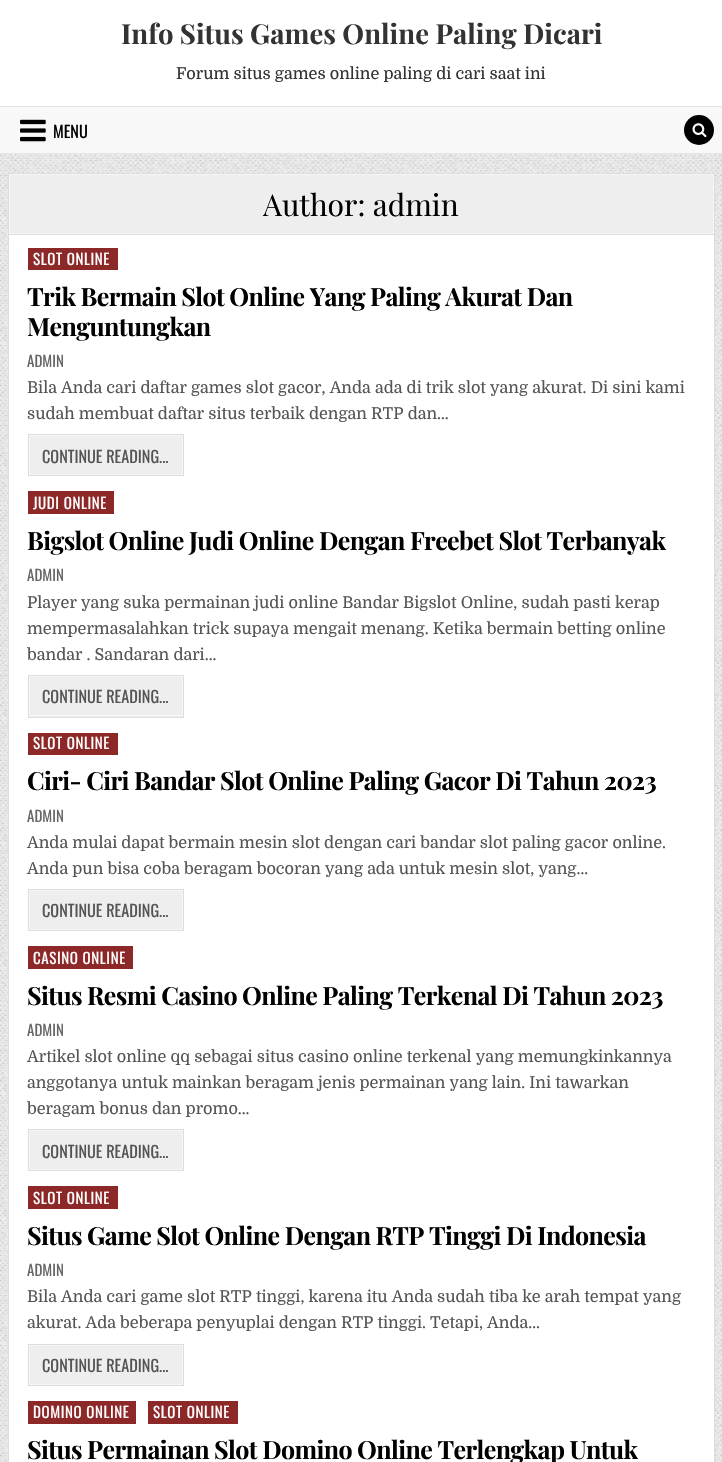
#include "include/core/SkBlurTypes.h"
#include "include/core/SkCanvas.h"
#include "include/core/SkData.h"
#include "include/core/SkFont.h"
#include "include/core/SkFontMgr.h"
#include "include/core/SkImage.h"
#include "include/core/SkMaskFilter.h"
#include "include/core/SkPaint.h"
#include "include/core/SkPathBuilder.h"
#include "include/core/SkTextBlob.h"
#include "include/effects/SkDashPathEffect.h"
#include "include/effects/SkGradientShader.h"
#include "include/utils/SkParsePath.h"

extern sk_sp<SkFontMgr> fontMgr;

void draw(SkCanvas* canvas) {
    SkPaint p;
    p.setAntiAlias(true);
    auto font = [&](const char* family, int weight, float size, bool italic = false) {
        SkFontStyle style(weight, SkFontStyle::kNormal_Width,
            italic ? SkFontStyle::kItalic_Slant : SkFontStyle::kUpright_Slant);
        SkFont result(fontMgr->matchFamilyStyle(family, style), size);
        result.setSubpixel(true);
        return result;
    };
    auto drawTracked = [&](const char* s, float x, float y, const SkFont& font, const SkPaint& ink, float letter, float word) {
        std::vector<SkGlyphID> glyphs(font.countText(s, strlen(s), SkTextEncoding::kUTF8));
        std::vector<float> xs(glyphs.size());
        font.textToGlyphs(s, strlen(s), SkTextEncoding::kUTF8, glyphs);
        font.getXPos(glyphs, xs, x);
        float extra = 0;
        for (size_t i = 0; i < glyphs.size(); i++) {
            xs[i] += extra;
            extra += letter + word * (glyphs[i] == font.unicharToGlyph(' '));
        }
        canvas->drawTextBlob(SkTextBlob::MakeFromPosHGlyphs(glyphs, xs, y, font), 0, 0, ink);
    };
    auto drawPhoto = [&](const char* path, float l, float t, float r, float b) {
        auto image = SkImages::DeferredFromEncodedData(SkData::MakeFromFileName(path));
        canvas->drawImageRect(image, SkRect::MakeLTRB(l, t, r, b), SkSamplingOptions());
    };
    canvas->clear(0xFFFFFFFF);
    drawPhoto("media/1.png", 0, 154, 722, 1462);
    auto font1 = font("Playfair Display", 700, 27.5f);
    p.setColor(0xFF333333);
    canvas->drawString("Info Situs Games Online Paling Dicari", 121, 44, font1, p);
    auto font2 = font("Domine", 400, 16.25f);
    canvas->drawString("Forum situs games online paling di cari saat ini", 176, 79, font2, p);
    {
        const struct { float l, t, r, b; SkColor color; } items[] = {
            {0, 107, 722, 153, 0xFFF8F8F8},
            {0, 106, 722, 107, 0xFFE5E5E5},
            {0, 153, 722, 154, 0xFFE5E5E5},
        };
        for (auto [l, t, r, b, color] : items) {
            p.setColor(color);
            canvas->drawRect(SkRect::MakeLTRB(l, t, r, b), p);
        }
    }
    drawPhoto("media/2.png", 20, 119, 46, 142);
    auto font3 = font("Oswald", 400, 16.25f);
    p.setColor(0xFF000000);
    canvas->drawString("MENU", 53, 138, font3, p);
    canvas->drawCircle(699, 130, 15, p);
    drawPhoto("media/3.png", 692, 123, 707, 138);
    p.setColor(0xFFFFFFFF);
    canvas->drawRect(SkRect::MakeLTRB(9, 235, 714, 1462), p);
    p.setStyle(SkPaint::kStroke_Style);
    p.setStrokeWidth(1);
    p.setColor(0xFFDDDDDD);
    canvas->drawRect(SkRect::MakeLTRB(8.5f, 173.5f, 714.5f, 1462.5f), p);
    p.setStyle(SkPaint::kFill_Style);
    canvas->drawRect(SkRect::MakeLTRB(9, 234, 714, 235), p);
    p.setColor(0xFFEEEEEE);
    canvas->drawRect(SkRect::MakeLTRB(9.5f, 174.5f, 713.5f, 233.5f), p);
    p.setStyle(SkPaint::kStroke_Style);
    p.setColor(0xFFF6F6F6);
    canvas->drawRect(SkRect::MakeLTRB(9.5f, 174.5f, 713.5f, 233.5f), p);
    auto font4 = font("Playfair Display", 400, 30);
    p.setStyle(SkPaint::kFill_Style);
    p.setColor(0xFF000000);
    canvas->drawString("Author: admin", 263, 216, font4, p);
    p.setColor(0xFF8C2828);
    canvas->drawRect(SkRect::MakeLTRB(28, 248, 118, 270), p);
    auto font5 = font("Oswald", 400, 15);
    p.setColor(0xFFFFFFFF);
    drawTracked("SLOT ONLINE", 33, 265, font5, p, 0.6f, 0);
    auto font6 = font("Playfair Display", 700, 25);
    p.setColor(0xFF000000);
    drawTracked("Trik Bermain Slot Online Yang Paling Akurat Dan", 27, 306, font6, p, -0.62f, 0);
    drawTracked("Menguntungkan", 27, 336, font6, p, -0.62f, 0);
    p.setColor(0xFF666666);
    canvas->drawString("ADMIN", 27, 367, font5, p);
    p.setColor(0xFF555555);
    canvas->drawString("Bila Anda cari daftar games slot gacor, Anda ada di trik slot yang akurat. Di sini kami", 27, 393, font2, p);
    canvas->drawString("sudah membuat daftar situs terbaik dengan RTP dan…", 27, 419, font2, p);
    p.setColor(0xFFEEEEEE);
    canvas->drawRect(SkRect::MakeLTRB(30, 436, 182, 474), p);
    p.setStyle(SkPaint::kStroke_Style);
    p.setColor(0xFFDDDDDD);
    canvas->drawRect(SkRect::MakeLTRB(28.5f, 434.5f, 183.5f, 475.5f), p);
    p.setColor(0xFFF6F6F6);
    canvas->drawRect(SkRect::MakeLTRB(29.5f, 435.5f, 182.5f, 474.5f), p);
    p.setStyle(SkPaint::kFill_Style);
    p.setColor(0xFF555555);
    canvas->drawString("CONTINUE READING...", 42, 463, font3, p);
    p.setColor(0xFF8C2828);
    canvas->drawRect(SkRect::MakeLTRB(28, 491, 114, 514), p);
    p.setColor(0xFFFFFFFF);
    drawTracked("JUDI ONLINE", 33, 509, font5, p, 0.6f, 0);
    p.setColor(0xFF000000);
    drawTracked("Bigslot Online Judi Online Dengan Freebet Slot Terbanyak", 27, 550, font6, p, -0.62f, 0);
    p.setColor(0xFF666666);
    canvas->drawString("ADMIN", 27, 581, font5, p);
    p.setColor(0xFF555555);
    {
        const struct { const char* s; float x, y; } items[] = {
            {"Player yang suka permainan judi online Bandar Bigslot Online, sudah pasti kerap", 27, 608},
            {"mempermasalahkan trick supaya mengait menang. Ketika bermain betting online", 27, 634},
            {"bandar . Sandaran dari…", 27, 660},
        };
        for (auto [s, x, y] : items) {
            canvas->drawString(s, x, y, font2, p);
        }
    }
    p.setColor(0xFFEEEEEE);
    canvas->drawRect(SkRect::MakeLTRB(29, 677, 183, 717), p);
    p.setStyle(SkPaint::kStroke_Style);
    p.setColor(0xFFDDDDDD);
    canvas->drawRect(SkRect::MakeLTRB(28.5f, 675.5f, 183.5f, 717.5f), p);
    p.setColor(0xFFF6F6F6);
    canvas->drawRect(SkRect::MakeLTRB(29.5f, 676.5f, 182.5f, 715.5f), p);
    p.setStyle(SkPaint::kFill_Style);
    p.setColor(0xFF555555);
    canvas->drawString("CONTINUE READING...", 42, 703, font3, p);
    p.setColor(0xFF8C2828);
    canvas->drawRect(SkRect::MakeLTRB(28, 733, 118, 755), p);
    p.setColor(0xFFFFFFFF);
    drawTracked("SLOT ONLINE", 33, 749, font5, p, 0.6f, 0);
    p.setColor(0xFF000000);
    drawTracked("Ciri- Ciri Bandar Slot Online Paling Gacor Di Tahun 2023", 27, 790, font6, p, -0.62f, 0);
    p.setColor(0xFF666666);
    canvas->drawString("ADMIN", 27, 822, font5, p);
    p.setColor(0xFF555555);
    canvas->drawString("Anda mulai dapat bermain mesin slot dengan cari bandar slot paling gacor online.", 27, 848, font2, p);
    canvas->drawString("Anda pun bisa coba beragam bocoran yang ada untuk mesin slot, yang…", 27, 874, font2, p);
    p.setColor(0xFFEEEEEE);
    canvas->drawRect(SkRect::MakeLTRB(30, 891, 182, 929), p);
    p.setStyle(SkPaint::kStroke_Style);
    p.setColor(0xFFDDDDDD);
    canvas->drawRect(SkRect::MakeLTRB(28.5f, 889.5f, 183.5f, 930.5f), p);
    p.setColor(0xFFF6F6F6);
    canvas->drawRect(SkRect::MakeLTRB(29.5f, 890.5f, 182.5f, 929.5f), p);
    p.setStyle(SkPaint::kFill_Style);
    p.setColor(0xFF555555);
    canvas->drawString("CONTINUE READING...", 42, 917, font3, p);
    p.setColor(0xFF8C2828);
    canvas->drawRect(SkRect::MakeLTRB(28, 946, 133, 969), p);
    p.setColor(0xFFFFFFFF);
    drawTracked("CASINO ONLINE", 33, 964, font5, p, 0.6f, 0);
    p.setColor(0xFF000000);
    drawTracked("Situs Resmi Casino Online Paling Terkenal Di Tahun 2023", 27, 1005, font6, p, -0.62f, 0);
    p.setColor(0xFF666666);
    canvas->drawString("ADMIN", 27, 1036, font5, p);
    p.setColor(0xFF555555);
    {
        const struct { const char* s; float x, y; } items[] = {
            {"Artikel slot online qq sebagai situs casino online terkenal yang memungkinkannya", 27, 1062},
            {"anggotanya untuk mainkan beragam jenis permainan yang lain. Ini tawarkan", 27, 1088},
            {"beragam bonus dan promo…", 27, 1114},
        };
        for (auto [s, x, y] : items) {
            canvas->drawString(s, x, y, font2, p);
        }
    }
    p.setColor(0xFFEEEEEE);
    canvas->drawRect(SkRect::MakeLTRB(30, 1131, 182, 1169), p);
    p.setStyle(SkPaint::kStroke_Style);
    p.setColor(0xFFDDDDDD);
    canvas->drawRect(SkRect::MakeLTRB(28.5f, 1129.5f, 183.5f, 1170.5f), p);
    p.setColor(0xFFF6F6F6);
    canvas->drawRect(SkRect::MakeLTRB(29.5f, 1130.5f, 182.5f, 1169.5f), p);
    p.setStyle(SkPaint::kFill_Style);
    p.setColor(0xFF555555);
    canvas->drawString("CONTINUE READING...", 42, 1158, font3, p);
    p.setColor(0xFF8C2828);
    canvas->drawRect(SkRect::MakeLTRB(28, 1186, 118, 1209), p);
    p.setColor(0xFFFFFFFF);
    drawTracked("SLOT ONLINE", 33, 1204, font5, p, 0.6f, 0);
    p.setColor(0xFF000000);
    drawTracked("Situs Game Slot Online Dengan RTP Tinggi Di Indonesia", 27, 1245, font6, p, -0.62f, 0);
    p.setColor(0xFF666666);
    canvas->drawString("ADMIN", 27, 1276, font5, p);
    p.setColor(0xFF555555);
    canvas->drawString("Bila Anda cari game slot RTP tinggi, karena itu Anda sudah tiba ke arah tempat yang", 27, 1302, font2, p);
    canvas->drawString("akurat. Ada beberapa penyuplai dengan RTP tinggi. Tetapi, Anda…", 27, 1328, font2, p);
    p.setColor(0xFFEEEEEE);
    canvas->drawRect(SkRect::MakeLTRB(30, 1346, 182, 1384), p);
    p.setStyle(SkPaint::kStroke_Style);
    p.setColor(0xFFDDDDDD);
    canvas->drawRect(SkRect::MakeLTRB(28.5f, 1344.5f, 183.5f, 1385.5f), p);
    p.setColor(0xFFF6F6F6);
    canvas->drawRect(SkRect::MakeLTRB(29.5f, 1345.5f, 182.5f, 1384.5f), p);
    p.setStyle(SkPaint::kFill_Style);
    p.setColor(0xFF555555);
    canvas->drawString("CONTINUE READING...", 42, 1372, font3, p);
    p.setColor(0xFF8C2828);
    canvas->drawRect(SkRect::MakeLTRB(28, 1401, 136, 1424), p);
    p.setColor(0xFFFFFFFF);
    drawTracked("DOMINO ONLINE", 33, 1418, font5, p, 0.6f, 0);
    p.setColor(0xFF8C2828);
    canvas->drawRect(SkRect::MakeLTRB(148, 1401, 238, 1424), p);
    p.setColor(0xFFFFFFFF);
    drawTracked("SLOT ONLINE", 153, 1418, font5, p, 0.6f, 0);
    p.setColor(0xFF000000);
    drawTracked("Situs Permainan Slot Domino Online Terlengkap Untuk", 27, 1459, font6, p, -0.62f, 0);
}
